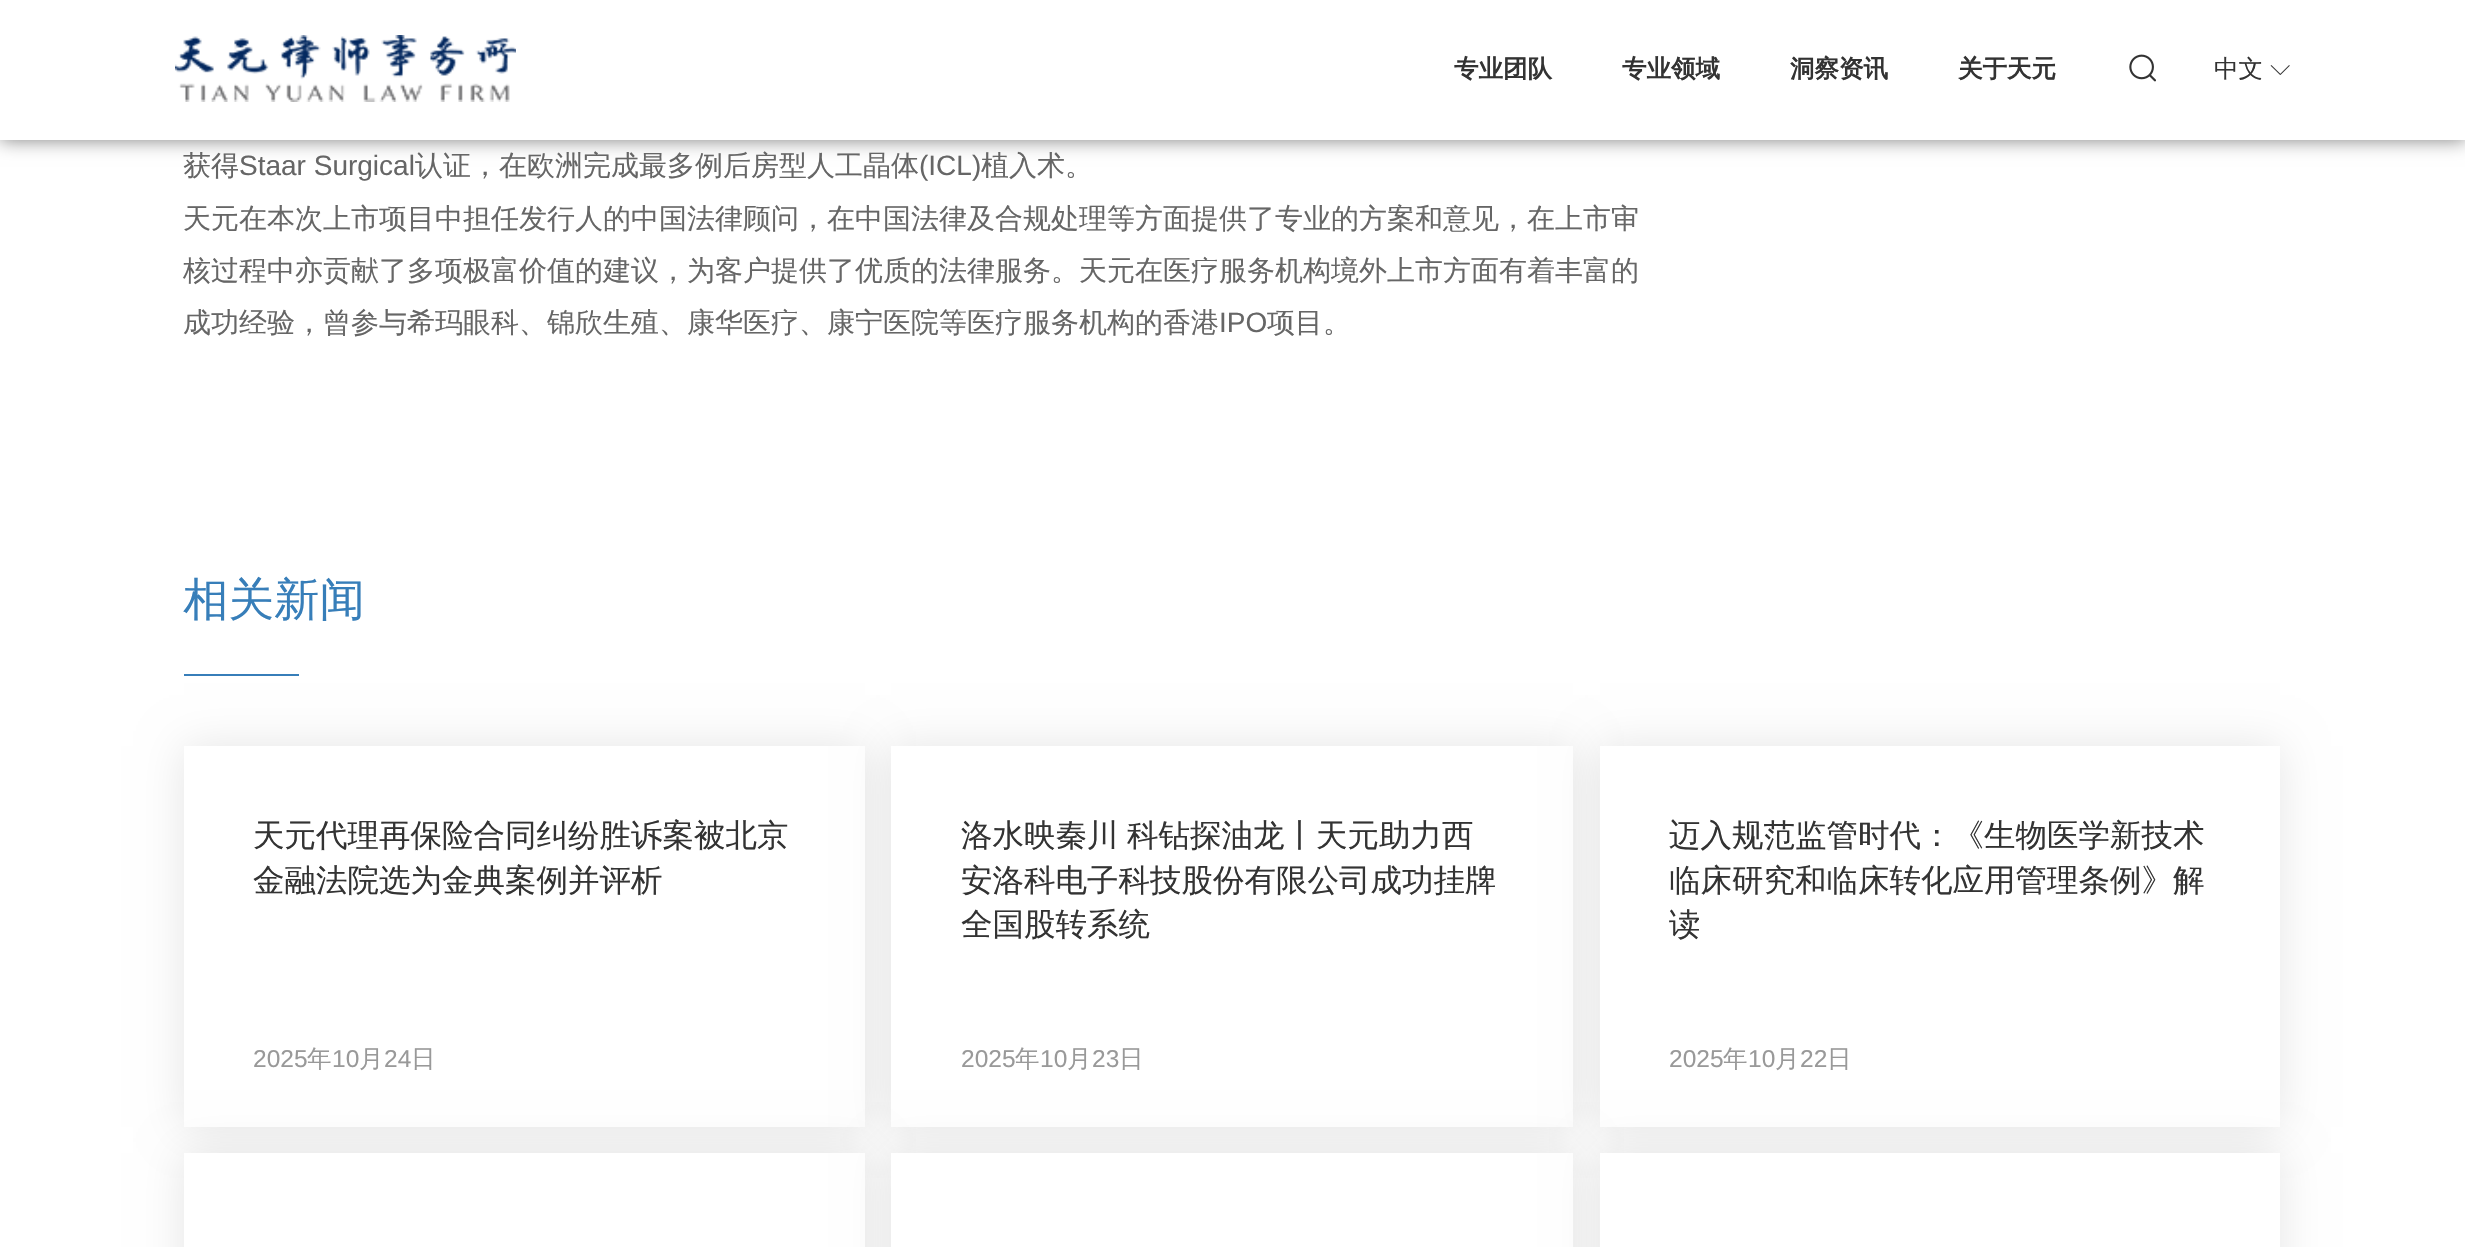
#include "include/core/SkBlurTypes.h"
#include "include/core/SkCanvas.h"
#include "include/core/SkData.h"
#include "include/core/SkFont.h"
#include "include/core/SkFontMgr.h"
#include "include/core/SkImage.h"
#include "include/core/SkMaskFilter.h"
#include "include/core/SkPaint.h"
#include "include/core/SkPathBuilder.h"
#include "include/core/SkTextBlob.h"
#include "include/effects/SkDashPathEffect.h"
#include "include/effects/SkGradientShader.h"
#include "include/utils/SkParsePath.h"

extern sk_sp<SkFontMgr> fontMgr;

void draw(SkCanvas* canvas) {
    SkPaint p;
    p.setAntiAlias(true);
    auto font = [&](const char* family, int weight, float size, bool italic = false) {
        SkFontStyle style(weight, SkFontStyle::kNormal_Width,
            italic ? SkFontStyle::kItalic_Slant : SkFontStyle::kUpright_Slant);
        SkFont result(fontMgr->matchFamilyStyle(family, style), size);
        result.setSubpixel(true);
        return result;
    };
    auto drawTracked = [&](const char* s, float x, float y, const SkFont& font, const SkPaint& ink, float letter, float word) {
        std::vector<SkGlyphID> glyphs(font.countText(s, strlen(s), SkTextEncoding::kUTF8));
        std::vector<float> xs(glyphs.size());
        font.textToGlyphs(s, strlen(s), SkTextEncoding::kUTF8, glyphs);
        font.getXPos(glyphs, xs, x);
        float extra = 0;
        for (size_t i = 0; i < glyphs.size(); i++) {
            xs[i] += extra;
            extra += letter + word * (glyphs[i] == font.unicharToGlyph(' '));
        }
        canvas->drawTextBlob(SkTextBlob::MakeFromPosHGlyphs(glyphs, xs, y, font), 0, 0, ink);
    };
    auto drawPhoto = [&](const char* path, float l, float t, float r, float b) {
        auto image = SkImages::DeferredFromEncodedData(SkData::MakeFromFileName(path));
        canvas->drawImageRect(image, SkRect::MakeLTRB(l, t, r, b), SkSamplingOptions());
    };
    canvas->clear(0xFFFFFFFF);
    p.setColor(0x80000000);
    p.setMaskFilter(SkMaskFilter::MakeBlur(kNormal_SkBlurStyle, 9));
    canvas->drawRect(SkRect::MakeLTRB(0, 0, 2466, 140), p);
    p.setMaskFilter(nullptr);
    p.setColor(0xFFFFFFFF);
    canvas->drawRect(SkRect::MakeLTRB(0, 0, 2465, 140), p);
    drawPhoto("media/1.png", 175, 35, 516, 102);
    auto font1 = font("WenQuanYi Zen Hei", 700, 24.5f);
    p.setColor(0xFF333333);
    {
        const struct { const char* s; float x, y; } items[] = {
            {"专业团队", 1454, 77},
            {"专业领域", 1622, 77},
            {"洞察资讯", 1790, 77},
            {"关于天元", 1958, 77},
        };
        for (auto [s, x, y] : items) {
            canvas->drawString(s, x, y, font1, p);
        }
    }
    drawPhoto("media/2.png", 2129, 54, 2156, 82);
    auto font2 = font("WenQuanYi Zen Hei", 500, 24.5f);
    canvas->drawString("中文", 2214, 77, font2, p);
    drawPhoto("media/3.png", 2270, 65, 2290, 75);
    auto font3 = font("WenQuanYi Zen Hei", 500, 28);
    p.setColor(0xFF666666);
    canvas->drawString("获得", 183, 175, font3, p);
    auto font4 = font("Liberation Sans", 400, 28);
    canvas->drawString("Staar Surgical", 239, 175, font4, p);
    canvas->drawString("认证，在欧洲完成最多例后房型人工晶体", 415, 175, font3, p);
    canvas->drawString("(ICL)", 919, 175, font4, p);
    {
        const struct { const char* s; float x, y; } items[] = {
            {"植入术。", 981, 175},
            {"天元在本次上市项目中担任发行人的中国法律顾问，在中国法律及合规处理等方面提供了专业的方案和意见，在上市审", 183, 228},
            {"核过程中亦贡献了多项极富价值的建议，为客户提供了优质的法律服务。天元在医疗服务机构境外上市方面有着丰富的", 183, 280},
            {"成功经验，曾参与希玛眼科、锦欣生殖、康华医疗、康宁医院等医疗服务机构的香港", 183, 332},
        };
        for (auto [s, x, y] : items) {
            canvas->drawString(s, x, y, font3, p);
        }
    }
    canvas->drawString("IPO", 1219, 332, font4, p);
    canvas->drawString("项目。", 1267, 332, font3, p);
    auto font5 = font("WenQuanYi Zen Hei", 500, 45.5f);
    p.setColor(0xFF377EB9);
    canvas->drawString("相关新闻", 183, 615, font5, p);
    canvas->drawRect(SkRect::MakeLTRB(184, 674, 299, 676), p);
    p.setColor(0x1A000000);
    p.setMaskFilter(SkMaskFilter::MakeBlur(kNormal_SkBlurStyle, 21));
    canvas->drawRect(SkRect::MakeLTRB(184, 746, 865, 1127), p);
    p.setMaskFilter(nullptr);
    p.setColor(0xFFFFFFFF);
    canvas->drawRect(SkRect::MakeLTRB(184, 746, 865, 1127), p);
    auto font6 = font("WenQuanYi Zen Hei", 500, 31.5f);
    p.setColor(0xFF333333);
    canvas->drawString("天元代理再保险合同纠纷胜诉案被北京", 253, 846, font6, p);
    canvas->drawString("金融法院选为金典案例并评析", 253, 891, font6, p);
    auto font7 = font("Liberation Sans", 400, 24.5f);
    p.setColor(0xFF999999);
    canvas->drawString("2025", 253, 1067, font7, p);
    canvas->drawString("年", 307, 1067, font2, p);
    canvas->drawString("10", 332, 1067, font7, p);
    canvas->drawString("月", 359, 1067, font2, p);
    canvas->drawString("24", 384, 1067, font7, p);
    canvas->drawString("日", 411, 1067, font2, p);
    p.setColor(0x1A000000);
    p.setMaskFilter(SkMaskFilter::MakeBlur(kNormal_SkBlurStyle, 21));
    canvas->drawRect(SkRect::MakeLTRB(891, 746, 1573, 1127), p);
    p.setMaskFilter(nullptr);
    p.setColor(0xFFFFFFFF);
    canvas->drawRect(SkRect::MakeLTRB(891, 746, 1573, 1127), p);
    p.setColor(0xFF333333);
    drawTracked("洛水映秦川 科钻探油龙丨天元助力西", 961, 846, font6, p, 0, -1);
    canvas->drawString("安洛科电子科技股份有限公司成功挂牌", 961, 891, font6, p);
    canvas->drawString("全国股转系统", 961, 935, font6, p);
    p.setColor(0xFF999999);
    canvas->drawString("2025", 961, 1067, font7, p);
    canvas->drawString("年", 1015, 1067, font2, p);
    canvas->drawString("10", 1040, 1067, font7, p);
    canvas->drawString("月", 1067, 1067, font2, p);
    canvas->drawString("23", 1092, 1067, font7, p);
    canvas->drawString("日", 1119, 1067, font2, p);
    p.setColor(0x1A000000);
    p.setMaskFilter(SkMaskFilter::MakeBlur(kNormal_SkBlurStyle, 21));
    canvas->drawRect(SkRect::MakeLTRB(1600, 746, 2280, 1127), p);
    p.setMaskFilter(nullptr);
    p.setColor(0xFFFFFFFF);
    canvas->drawRect(SkRect::MakeLTRB(1600, 746, 2280, 1127), p);
    p.setColor(0xFF333333);
    {
        const struct { const char* s; float x, y; } items[] = {
            {"迈入规范监管时代：《生物医学新技术", 1669, 846},
            {"临床研究和临床转化应用管理条例》解", 1669, 891},
            {"读", 1669, 935},
        };
        for (auto [s, x, y] : items) {
            canvas->drawString(s, x, y, font6, p);
        }
    }
    p.setColor(0xFF999999);
    canvas->drawString("2025", 1669, 1067, font7, p);
    canvas->drawString("年", 1723, 1067, font2, p);
    canvas->drawString("10", 1748, 1067, font7, p);
    canvas->drawString("月", 1775, 1067, font2, p);
    canvas->drawString("22", 1800, 1067, font7, p);
    canvas->drawString("日", 1827, 1067, font2, p);
    p.setColor(0x1A000000);
    p.setMaskFilter(SkMaskFilter::MakeBlur(kNormal_SkBlurStyle, 21));
    canvas->drawRect(SkRect::MakeLTRB(184, 1153, 865, 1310), p);
    p.setMaskFilter(nullptr);
    p.setColor(0xFFFFFFFF);
    canvas->drawRect(SkRect::MakeLTRB(184, 1153, 865, 1247), p);
    p.setColor(0x1A000000);
    p.setMaskFilter(SkMaskFilter::MakeBlur(kNormal_SkBlurStyle, 21));
    canvas->drawRect(SkRect::MakeLTRB(891, 1153, 1573, 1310), p);
    p.setMaskFilter(nullptr);
    p.setColor(0xFFFFFFFF);
    canvas->drawRect(SkRect::MakeLTRB(891, 1153, 1573, 1247), p);
    p.setColor(0x1A000000);
    p.setMaskFilter(SkMaskFilter::MakeBlur(kNormal_SkBlurStyle, 21));
    canvas->drawRect(SkRect::MakeLTRB(1600, 1153, 2280, 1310), p);
    p.setMaskFilter(nullptr);
    p.setColor(0xFFFFFFFF);
    canvas->drawRect(SkRect::MakeLTRB(1600, 1153, 2280, 1247), p);
}
